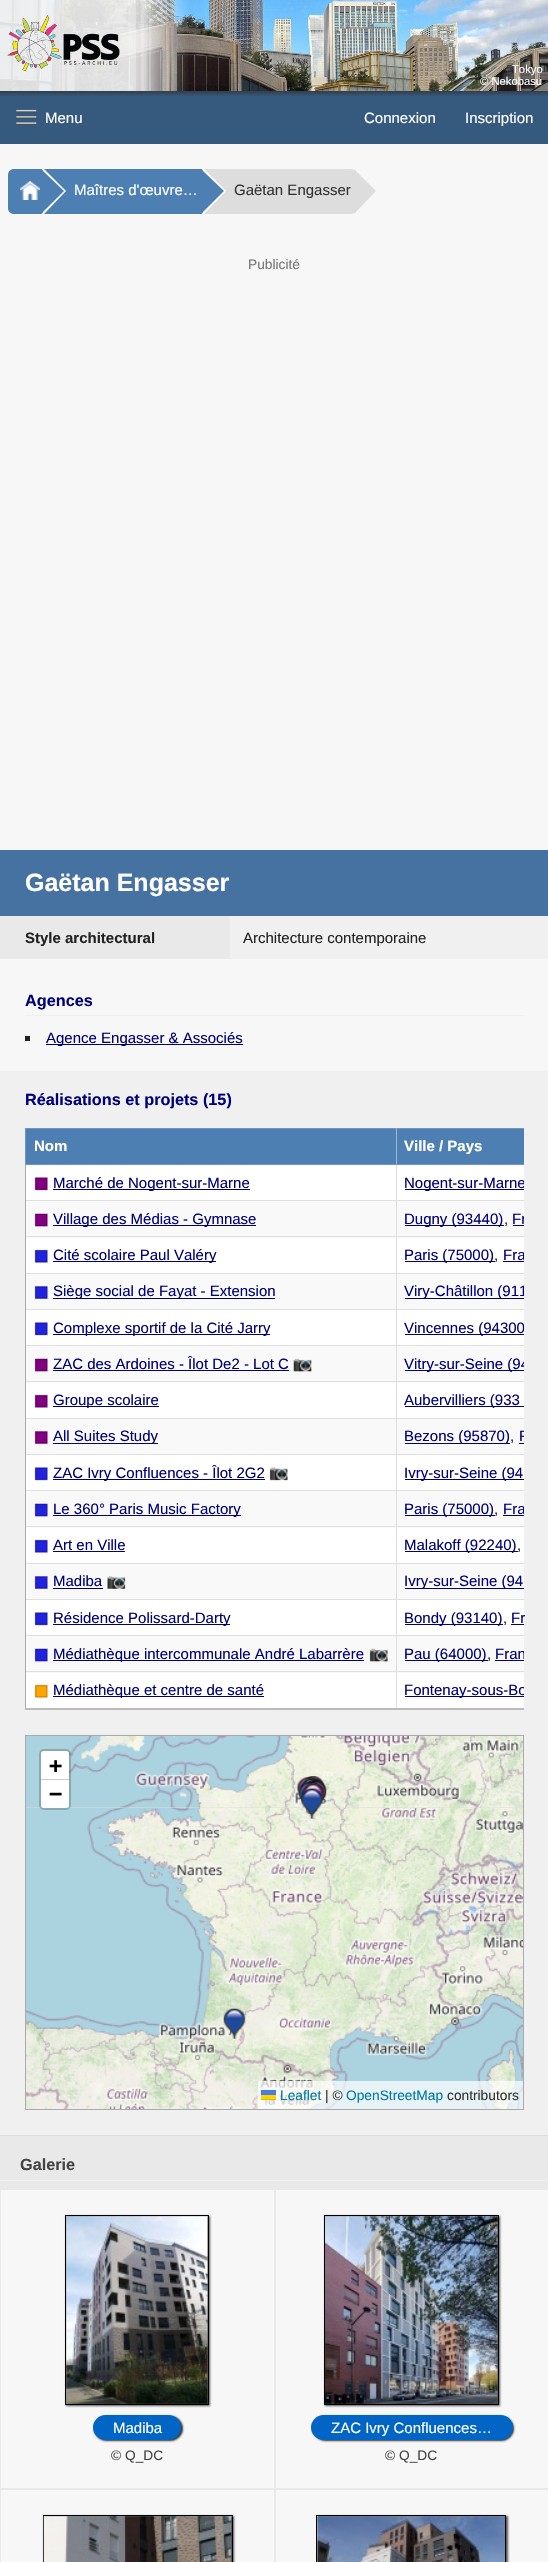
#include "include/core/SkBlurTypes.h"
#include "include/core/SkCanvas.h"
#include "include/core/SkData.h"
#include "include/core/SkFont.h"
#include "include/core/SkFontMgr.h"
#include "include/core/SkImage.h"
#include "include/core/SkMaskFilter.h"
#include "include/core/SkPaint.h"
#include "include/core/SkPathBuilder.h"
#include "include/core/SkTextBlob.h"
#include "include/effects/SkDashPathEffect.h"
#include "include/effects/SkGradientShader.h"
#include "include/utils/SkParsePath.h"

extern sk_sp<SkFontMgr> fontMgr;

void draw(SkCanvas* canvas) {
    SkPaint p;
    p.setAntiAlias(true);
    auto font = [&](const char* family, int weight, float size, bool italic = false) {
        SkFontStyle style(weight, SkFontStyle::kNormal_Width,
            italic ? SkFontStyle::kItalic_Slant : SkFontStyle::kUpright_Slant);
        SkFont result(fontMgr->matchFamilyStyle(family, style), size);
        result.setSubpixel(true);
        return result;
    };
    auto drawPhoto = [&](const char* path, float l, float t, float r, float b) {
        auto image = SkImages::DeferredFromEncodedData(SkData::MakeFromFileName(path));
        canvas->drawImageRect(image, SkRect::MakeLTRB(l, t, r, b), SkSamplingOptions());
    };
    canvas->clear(0xFFF7F7F7);
    drawPhoto("media/1.png", 0, 0, 548, 91);
    auto font1 = font("Liberation Sans", 400, 11.25f);
    p.setColor(0xFFFFFFFF);
    canvas->drawString("Tokyo", 512, 73, font1, p);
    canvas->drawString("© Nekobasu", 480, 85, font1, p);
    {
        const SkColor colors[] = {0xFF323D4A, 0xFF36597E};
        const float stops[] = {0, 0.1f};
        const SkPoint ends[] = {{274, 91}, {274, 144}};
        p.setShader(SkGradientShader::MakeLinear(ends, colors, stops, 2, SkTileMode::kClamp));
        p.setAlpha(255);
    }
    canvas->drawRect(SkRect::MakeLTRB(0, 91, 548, 144), p);
    drawPhoto("media/2.png", 16, 109, 37, 126);
    auto font2 = font("Liberation Sans", 400, 15);
    p.setShader(nullptr);
    p.setColor(0xFFFFFFFF);
    {
        const struct { const char* s; float x, y; } items[] = {
            {"Menu", 45, 123},
            {"Connexion", 364, 123},
            {"Inscription", 465, 123},
        };
        for (auto [s, x, y] : items) {
            canvas->drawString(s, x, y, font2, p);
        }
    }
    p.setColor(0xFF4E7FB3);
    canvas->drawPath(SkPathBuilder().moveTo(14, 169).lineTo(40.5f, 169).cubicTo(42, 169, 43, 170, 43, 171.5f).lineTo(43, 211.5f).cubicTo(43, 213, 42, 214, 40.5f, 214).lineTo(14, 214).cubicTo(10.5f, 214, 8, 211.5f, 8, 208).lineTo(8, 175).cubicTo(8, 171.5f, 10.5f, 169, 14, 169).close().detach(), p);
    drawPhoto("media/3.png", 20, 181, 40, 200);
    canvas->drawPath(SkPathBuilder().moveTo(44, 169).lineTo(200.5f, 169).cubicTo(202, 169, 203, 170, 203, 171.5f).lineTo(203, 211.5f).cubicTo(203, 213, 202, 214, 200.5f, 214).lineTo(44, 214).close().detach(), p);
    p.setColor(0xFFFFFFFF);
    canvas->drawPath(SkPathBuilder().moveTo(44, 214).lineTo(44, 169).lineTo(66, 191).close().detach(), p);
    p.setColor(0xFF4E7FB3);
    canvas->drawPath(SkPathBuilder().moveTo(41, 214).lineTo(41, 169).lineTo(64, 191).close().detach(), p);
    p.setColor(0xFFFFFFFF);
    canvas->drawString("Maîtres d'œuvre…", 74, 195, font2, p);
    p.setColor(0xFFDDDDDD);
    canvas->drawPath(SkPathBuilder().moveTo(204, 169).lineTo(351, 169).cubicTo(353, 169, 355, 171, 355, 173).lineTo(355, 210).cubicTo(355, 212, 353, 214, 351, 214).lineTo(204, 214).close().detach(), p);
    p.setColor(0xFFFFFFFF);
    canvas->drawPath(SkPathBuilder().moveTo(204, 214).lineTo(204, 169).lineTo(226, 191).close().detach(), p);
    p.setColor(0xFF4E7FB3);
    canvas->drawPath(SkPathBuilder().moveTo(201, 214).lineTo(201, 169).lineTo(224, 191).close().detach(), p);
    p.setColor(0xFF333333);
    canvas->drawString("Gaëtan Engasser", 234, 195, font2, p);
    p.setColor(0xFFDDDDDD);
    canvas->drawPath(SkPathBuilder().moveTo(354, 214).lineTo(354, 169).lineTo(376, 191).close().detach(), p);
    auto font3 = font("Liberation Sans", 400, 13.75f);
    p.setColor(0xFF777777);
    canvas->drawString("Publicité", 248, 269, font3, p);
    p.setColor(0xFF4672A1);
    canvas->drawRect(SkRect::MakeLTRB(0, 850, 548, 916), p);
    auto font4 = font("Liberation Sans", 700, 25);
    p.setColor(0xFFFFFFFF);
    canvas->drawString("Gaëtan Engasser", 25, 891, font4, p);
    p.setColor(0xFFE9E9E9);
    canvas->drawRect(SkRect::MakeLTRB(0, 916, 230, 959), p);
    auto font5 = font("Liberation Sans", 700, 15);
    p.setColor(0xFF222222);
    canvas->drawString("Style architectural", 25, 943, font5, p);
    p.setColor(0xFFF0F0F0);
    canvas->drawRect(SkRect::MakeLTRB(230, 916, 548, 959), p);
    p.setColor(0xFF222222);
    canvas->drawString("Architecture contemporaine", 243, 943, font2, p);
    p.setColor(0xFFF0F0F0);
    canvas->drawRect(SkRect::MakeLTRB(25, 1015, 524, 1016), p);
    auto font6 = font("Liberation Sans", 700, 16.25f);
    p.setColor(0xFF000077);
    canvas->drawString("Agences", 25, 1006, font6, p);
    p.setColor(0xFF222222);
    canvas->drawRect(SkRect::MakeLTRB(25, 1036, 30, 1041), p);
    p.setColor(0xFF000077);
    canvas->drawRect(SkRect::MakeLTRB(46, 1044, 243, 1045), p);
    canvas->drawString("Agence Engasser & Associés", 46, 1043, font2, p);
    p.setColor(0xFFF0F0F0);
    canvas->drawRect(SkRect::MakeLTRB(0, 1071, 548, 2135), p);
    p.setColor(0xFF000077);
    canvas->drawString("Réalisations et projets (15)", 25, 1105, font6, p);
    {
        const struct { float l, t, r, b; SkColor color; } items[] = {
            {26, 1165, 524, 1708, 0xFFFFFFFF},
            {26, 1129, 396, 1164, 0xFF4E7FB2},
            {25, 1128, 524, 1129, 0xFF6D96C2},
            {396, 1200, 524, 1201, 0xFFDFDFDF},
            {397, 1201, 524, 1238, 0xFFF9F9F9},
            {396, 1236, 524, 1237, 0xFFDFDFDF},
            {396, 1273, 524, 1274, 0xFFDFDFDF},
            {396, 1309, 524, 1310, 0xFFDFDFDF},
            {396, 1345, 524, 1346, 0xFFDFDFDF},
            {397, 1346, 524, 1383, 0xFFF9F9F9},
            {396, 1381, 524, 1382, 0xFFDFDFDF},
            {396, 1418, 524, 1419, 0xFFDFDFDF},
            {396, 1454, 524, 1455, 0xFFDFDFDF},
            {396, 1490, 524, 1491, 0xFFDFDFDF},
            {397, 1491, 524, 1528, 0xFFF9F9F9},
            {396, 1526, 524, 1527, 0xFFDFDFDF},
            {396, 1563, 524, 1564, 0xFFDFDFDF},
            {396, 1599, 524, 1600, 0xFFDFDFDF},
            {396, 1635, 524, 1636, 0xFFDFDFDF},
            {397, 1636, 524, 1673, 0xFFF9F9F9},
            {396, 1671, 524, 1672, 0xFFDFDFDF},
            {396, 1671, 397, 1710, 0xFFDFDFDF},
            {396, 1635, 397, 1673, 0xFFDFDFDF},
            {396, 1599, 397, 1636, 0xFFDFDFDF},
            {396, 1563, 397, 1600, 0xFFDFDFDF},
            {396, 1526, 397, 1564, 0xFFDFDFDF},
            {396, 1490, 397, 1528, 0xFFDFDFDF},
            {396, 1454, 397, 1491, 0xFFDFDFDF},
            {396, 1418, 397, 1455, 0xFFDFDFDF},
            {396, 1381, 397, 1419, 0xFFDFDFDF},
            {396, 1345, 397, 1383, 0xFFDFDFDF},
            {396, 1309, 397, 1346, 0xFFDFDFDF},
            {396, 1273, 397, 1310, 0xFFDFDFDF},
            {396, 1236, 397, 1274, 0xFFDFDFDF},
            {396, 1164, 397, 1238, 0xFFDFDFDF},
            {396, 1164, 524, 1165, 0xFF6D96C2},
            {396, 1128, 397, 1165, 0xFF9CB9DA},
            {26, 1201, 396, 1238, 0xFFF9F9F9},
            {26, 1346, 396, 1383, 0xFFF9F9F9},
            {26, 1491, 396, 1528, 0xFFF9F9F9},
            {26, 1636, 396, 1673, 0xFFF9F9F9},
            {25, 1671, 26, 1710, 0xFFAAAAAA},
            {25, 1671, 398, 1672, 0xFFDFDFDF},
            {25, 1635, 26, 1673, 0xFFAAAAAA},
            {25, 1635, 398, 1636, 0xFFDFDFDF},
            {25, 1599, 26, 1636, 0xFFAAAAAA},
            {25, 1599, 398, 1600, 0xFFDFDFDF},
            {25, 1563, 26, 1600, 0xFFAAAAAA},
            {25, 1563, 398, 1564, 0xFFDFDFDF},
            {25, 1526, 26, 1564, 0xFFAAAAAA},
            {25, 1526, 398, 1527, 0xFFDFDFDF},
            {25, 1490, 26, 1528, 0xFFAAAAAA},
            {25, 1490, 398, 1491, 0xFFDFDFDF},
            {25, 1454, 26, 1491, 0xFFAAAAAA},
            {25, 1454, 398, 1455, 0xFFDFDFDF},
            {25, 1418, 26, 1455, 0xFFAAAAAA},
            {25, 1418, 398, 1419, 0xFFDFDFDF},
            {25, 1381, 26, 1419, 0xFFAAAAAA},
            {25, 1381, 398, 1382, 0xFFDFDFDF},
            {25, 1345, 26, 1383, 0xFFAAAAAA},
            {25, 1345, 398, 1346, 0xFFDFDFDF},
            {25, 1309, 26, 1346, 0xFFAAAAAA},
            {25, 1309, 398, 1310, 0xFFDFDFDF},
            {25, 1273, 26, 1310, 0xFFAAAAAA},
            {25, 1273, 398, 1274, 0xFFDFDFDF},
            {25, 1236, 26, 1274, 0xFFAAAAAA},
            {25, 1236, 398, 1237, 0xFFDFDFDF},
            {25, 1200, 26, 1238, 0xFFAAAAAA},
            {25, 1200, 398, 1201, 0xFFDFDFDF},
            {25, 1164, 26, 1201, 0xFFAAAAAA},
            {25, 1164, 398, 1165, 0xFF6D96C2},
            {25, 1128, 26, 1165, 0xFF6D96C2},
        };
        for (auto [l, t, r, b, color] : items) {
            p.setColor(color);
            canvas->drawRect(SkRect::MakeLTRB(l, t, r, b), p);
        }
    }
    p.setColor(0xFFFFFFFF);
    canvas->drawString("Nom", 34, 1151, font5, p);
    p.setColor(0xFF4E7FB2);
    canvas->drawRect(SkRect::MakeLTRB(397, 1129, 524, 1164), p);
    p.setColor(0xFFFFFFFF);
    canvas->drawString("Ville / Pays", 404, 1151, font5, p);
    drawPhoto("media/4.png", 34, 1177, 48, 1191);
    p.setColor(0xFF000077);
    canvas->drawRect(SkRect::MakeLTRB(53, 1189, 250, 1190), p);
    canvas->drawString("Marché de Nogent-sur-Marne", 53, 1188, font2, p);
    canvas->drawRect(SkRect::MakeLTRB(405, 1189, 524, 1190), p);
    canvas->save();
    canvas->clipRect(SkRect::MakeLTRB(25, 1128, 524, 1710));
    canvas->drawString("Nogent-sur-Marne", 404, 1188, font2, p);
    canvas->restore();
    drawPhoto("media/5.png", 34, 1213, 48, 1227);
    canvas->drawRect(SkRect::MakeLTRB(53, 1225, 256, 1226), p);
    canvas->drawString("Village des Médias - Gymnase", 53, 1224, font2, p);
    canvas->drawRect(SkRect::MakeLTRB(405, 1225, 504, 1226), p);
    canvas->drawString("Dugny (93440)", 404, 1224, font2, p);
    p.setColor(0xFF222222);
    canvas->drawString(",", 504, 1224, font2, p);
    canvas->save();
    canvas->clipRect(SkRect::MakeLTRB(25, 1128, 524, 1710));
    p.setColor(0xFF000077);
    canvas->drawString("Fr", 512, 1224, font2, p);
    canvas->restore();
    canvas->drawRect(SkRect::MakeLTRB(513, 1225, 524, 1226), p);
    drawPhoto("media/6.png", 34, 1249, 48, 1263);
    canvas->drawRect(SkRect::MakeLTRB(53, 1261, 216, 1262), p);
    canvas->drawString("Cité scolaire Paul Valéry", 53, 1260, font2, p);
    canvas->drawRect(SkRect::MakeLTRB(405, 1261, 495, 1262), p);
    canvas->drawString("Paris (75000)", 404, 1260, font2, p);
    p.setColor(0xFF222222);
    canvas->drawString(",", 494, 1260, font2, p);
    canvas->save();
    canvas->clipRect(SkRect::MakeLTRB(25, 1128, 524, 1710));
    p.setColor(0xFF000077);
    canvas->drawString("Fra", 503, 1260, font2, p);
    canvas->restore();
    canvas->drawRect(SkRect::MakeLTRB(503, 1261, 524, 1262), p);
    p.setColor(0xFFF9F9F9);
    canvas->drawRect(SkRect::MakeLTRB(26, 1274, 396, 1309), p);
    drawPhoto("media/7.png", 34, 1286, 48, 1299);
    p.setColor(0xFF000077);
    canvas->drawRect(SkRect::MakeLTRB(53, 1298, 275, 1299), p);
    canvas->drawString("Siège social de Fayat - Extension", 53, 1296, font2, p);
    p.setColor(0xFFF9F9F9);
    canvas->drawRect(SkRect::MakeLTRB(397, 1274, 524, 1309), p);
    p.setColor(0xFF000077);
    canvas->drawRect(SkRect::MakeLTRB(405, 1298, 524, 1299), p);
    canvas->save();
    canvas->clipRect(SkRect::MakeLTRB(25, 1128, 524, 1710));
    canvas->drawString("Viry-Châtillon (911", 404, 1296, font2, p);
    canvas->restore();
    drawPhoto("media/8.png", 34, 1322, 48, 1336);
    canvas->drawRect(SkRect::MakeLTRB(53, 1334, 270, 1335), p);
    canvas->drawString("Complexe sportif de la Cité Jarry", 53, 1333, font2, p);
    canvas->drawRect(SkRect::MakeLTRB(405, 1334, 524, 1335), p);
    canvas->save();
    canvas->clipRect(SkRect::MakeLTRB(25, 1128, 524, 1710));
    canvas->drawString("Vincennes (94300", 404, 1333, font2, p);
    canvas->restore();
    drawPhoto("media/5.png", 34, 1358, 48, 1372);
    canvas->drawString("ZAC des Ardoines - Îlot De2 - Lot C", 53, 1369, font2, p);
    canvas->drawRect(SkRect::MakeLTRB(53, 1370, 289, 1371), p);
    drawPhoto("media/9.png", 293, 1358, 312, 1372);
    canvas->drawRect(SkRect::MakeLTRB(405, 1370, 524, 1371), p);
    canvas->save();
    canvas->clipRect(SkRect::MakeLTRB(25, 1128, 524, 1710));
    canvas->drawString("Vitry-sur-Seine (94", 404, 1369, font2, p);
    canvas->restore();
    drawPhoto("media/10.png", 34, 1394, 48, 1408);
    canvas->drawRect(SkRect::MakeLTRB(53, 1406, 159, 1407), p);
    canvas->drawString("Groupe scolaire", 53, 1405, font2, p);
    canvas->drawRect(SkRect::MakeLTRB(405, 1406, 524, 1407), p);
    canvas->drawString("Aubervilliers (933", 404, 1405, font2, p);
    p.setColor(0xFFF9F9F9);
    canvas->drawRect(SkRect::MakeLTRB(26, 1419, 396, 1454), p);
    drawPhoto("media/11.png", 34, 1431, 48, 1444);
    p.setColor(0xFF000077);
    canvas->drawRect(SkRect::MakeLTRB(53, 1443, 158, 1444), p);
    canvas->drawString("All Suites Study", 53, 1441, font2, p);
    p.setColor(0xFFF9F9F9);
    canvas->drawRect(SkRect::MakeLTRB(397, 1419, 524, 1454), p);
    p.setColor(0xFF000077);
    canvas->drawRect(SkRect::MakeLTRB(405, 1443, 510, 1444), p);
    canvas->drawString("Bezons (95870)", 404, 1441, font2, p);
    p.setColor(0xFF222222);
    canvas->drawString(",", 510, 1441, font2, p);
    canvas->save();
    canvas->clipRect(SkRect::MakeLTRB(25, 1128, 524, 1710));
    p.setColor(0xFF000077);
    canvas->drawString("F", 519, 1441, font2, p);
    canvas->restore();
    canvas->drawRect(SkRect::MakeLTRB(519, 1443, 524, 1444), p);
    drawPhoto("media/8.png", 34, 1467, 48, 1481);
    canvas->drawRect(SkRect::MakeLTRB(53, 1479, 265, 1480), p);
    canvas->drawString("ZAC Ivry Confluences - Îlot 2G2", 53, 1478, font2, p);
    drawPhoto("media/12.png", 269, 1467, 288, 1481);
    canvas->drawRect(SkRect::MakeLTRB(405, 1479, 524, 1480), p);
    canvas->drawString("Ivry-sur-Seine (94", 404, 1478, font2, p);
    drawPhoto("media/13.png", 34, 1503, 48, 1517);
    canvas->drawRect(SkRect::MakeLTRB(53, 1515, 241, 1516), p);
    canvas->drawString("Le 360° Paris Music Factory", 53, 1514, font2, p);
    canvas->drawRect(SkRect::MakeLTRB(405, 1515, 495, 1516), p);
    canvas->drawString("Paris (75000)", 404, 1514, font2, p);
    p.setColor(0xFF222222);
    canvas->drawString(",", 494, 1514, font2, p);
    canvas->save();
    canvas->clipRect(SkRect::MakeLTRB(25, 1128, 524, 1710));
    p.setColor(0xFF000077);
    canvas->drawString("Fra", 503, 1514, font2, p);
    canvas->restore();
    canvas->drawRect(SkRect::MakeLTRB(503, 1515, 524, 1516), p);
    drawPhoto("media/6.png", 34, 1539, 48, 1553);
    canvas->drawString("Art en Ville", 53, 1550, font2, p);
    canvas->drawRect(SkRect::MakeLTRB(53, 1551, 125, 1552), p);
    canvas->drawRect(SkRect::MakeLTRB(405, 1551, 518, 1552), p);
    canvas->drawString("Malakoff (92240)", 404, 1550, font2, p);
    p.setColor(0xFF222222);
    canvas->drawString(",", 517, 1550, font2, p);
    p.setColor(0xFFF9F9F9);
    canvas->drawRect(SkRect::MakeLTRB(26, 1564, 396, 1599), p);
    drawPhoto("media/7.png", 34, 1576, 48, 1589);
    p.setColor(0xFF000077);
    canvas->drawString("Madiba", 53, 1586, font2, p);
    canvas->drawRect(SkRect::MakeLTRB(53, 1588, 103, 1589), p);
    drawPhoto("media/14.png", 107, 1576, 126, 1589);
    p.setColor(0xFFF9F9F9);
    canvas->drawRect(SkRect::MakeLTRB(397, 1564, 524, 1599), p);
    p.setColor(0xFF000077);
    canvas->drawRect(SkRect::MakeLTRB(405, 1588, 524, 1589), p);
    canvas->drawString("Ivry-sur-Seine (94", 404, 1586, font2, p);
    drawPhoto("media/8.png", 34, 1612, 48, 1626);
    canvas->drawRect(SkRect::MakeLTRB(53, 1624, 230, 1625), p);
    canvas->drawString("Résidence Polissard-Darty", 53, 1623, font2, p);
    canvas->drawRect(SkRect::MakeLTRB(405, 1624, 503, 1625), p);
    canvas->drawString("Bondy (93140)", 404, 1623, font2, p);
    p.setColor(0xFF222222);
    canvas->drawString(",", 503, 1623, font2, p);
    p.setColor(0xFF000077);
    canvas->drawString("Fr", 511, 1623, font2, p);
    canvas->drawRect(SkRect::MakeLTRB(511, 1624, 524, 1625), p);
    drawPhoto("media/13.png", 34, 1648, 48, 1662);
    canvas->drawRect(SkRect::MakeLTRB(53, 1660, 364, 1661), p);
    canvas->drawString("Médiathèque intercommunale André Labarrère", 53, 1659, font2, p);
    drawPhoto("media/15.png", 369, 1648, 388, 1662);
    canvas->drawRect(SkRect::MakeLTRB(405, 1660, 488, 1661), p);
    canvas->drawString("Pau (64000)", 404, 1659, font2, p);
    p.setColor(0xFF222222);
    canvas->drawString(",", 487, 1659, font2, p);
    canvas->save();
    canvas->clipRect(SkRect::MakeLTRB(25, 1128, 524, 1710));
    p.setColor(0xFF000077);
    canvas->drawString("Fran", 495, 1659, font2, p);
    canvas->restore();
    canvas->drawRect(SkRect::MakeLTRB(495, 1660, 524, 1661), p);
    drawPhoto("media/16.png", 34, 1684, 48, 1698);
    canvas->drawRect(SkRect::MakeLTRB(53, 1696, 264, 1697), p);
    canvas->drawString("Médiathèque et centre de santé", 53, 1695, font2, p);
    p.setColor(0xFFBBBBBB);
    canvas->drawRect(SkRect::MakeLTRB(25, 1708, 524, 1710), p);
    p.setColor(0xFF000077);
    canvas->drawRect(SkRect::MakeLTRB(405, 1696, 524, 1697), p);
    canvas->save();
    canvas->clipRect(SkRect::MakeLTRB(25, 1128, 524, 1710));
    canvas->drawString("Fontenay-sous-Bo", 404, 1695, font2, p);
    canvas->restore();
    p.setColor(0xFFDDDDDD);
    canvas->drawRect(SkRect::MakeLTRB(26, 1807, 523, 1808), p);
    p.setStyle(SkPaint::kStroke_Style);
    p.setStrokeWidth(1);
    p.setColor(0xFFAAAAAA);
    canvas->drawRect(SkRect::MakeLTRB(25.5f, 1735.5f, 523.5f, 2109.5f), p);
    drawPhoto("media/17.png", 26, 1736, 244, 1808);
    drawPhoto("media/18.png", 244, 1736, 523, 1808);
    drawPhoto("media/19.png", 26, 1808, 244, 2109);
    drawPhoto("media/20.png", 244, 1808, 523, 2109);
    drawPhoto("media/21.png", 303, 1776, 325, 1791);
    drawPhoto("media/22.png", 297, 1777, 318, 1808);
    drawPhoto("media/23.png", 301, 1777, 324, 1789);
    drawPhoto("media/25.png", 303, 1778, 326, 1809);
    drawPhoto("media/24.png", 301, 1778, 324, 1789);
    drawPhoto("media/26.png", 303, 1780, 326, 1810);
    drawPhoto("media/28.png", 304, 1781, 326, 1812);
    drawPhoto("media/27.png", 302, 1781, 325, 1812);
    drawPhoto("media/29.png", 306, 1781, 327, 1812);
    drawPhoto("media/32.png", 304, 1782, 325, 1813);
    drawPhoto("media/30.png", 298, 1782, 321, 1813);
    drawPhoto("media/31.png", 302, 1782, 325, 1813);
    drawPhoto("media/33.png", 302, 1783, 325, 1814);
    drawPhoto("media/34.png", 301, 1788, 324, 1819);
    drawPhoto("media/35.png", 223, 2008, 246, 2039);
    p.setStrokeWidth(3);
    p.setColor(0x33000000);
    canvas->drawRoundRect(SkRect::MakeLTRB(40.5f, 1750.5f, 69.5f, 1808.5f), 3.5f, 3.5f, p);
    p.setStyle(SkPaint::kFill_Style);
    p.setColor(0xFFFFFFFF);
    canvas->drawPath(SkPathBuilder().moveTo(43.5f, 1751).lineTo(66.5f, 1751).cubicTo(68, 1751, 69, 1752, 69, 1753.5f).lineTo(69, 1780).lineTo(41, 1780).lineTo(41, 1753.5f).cubicTo(41, 1752, 42, 1751, 43.5f, 1751).close().detach(), p);
    p.setColor(0xFFCCCCCC);
    canvas->drawRect(SkRect::MakeLTRB(41, 1779, 69, 1780), p);
    auto font7 = font("DejaVu Sans Mono", 700, 22);
    p.setColor(0xFF000000);
    canvas->drawString("+", 49, 1773, font7, p);
    p.setColor(0xFFFFFFFF);
    canvas->drawPath(SkPathBuilder().moveTo(41, 1780).lineTo(69, 1780).lineTo(69, 1805.5f).cubicTo(69, 1807, 68, 1808, 66.5f, 1808).lineTo(43.5f, 1808).cubicTo(42, 1808, 41, 1807, 41, 1805.5f).close().detach(), p);
    p.setColor(0xFF000000);
    canvas->drawString("−", 49, 1801, font7, p);
    p.setColor(0xB3FFFFFF);
    canvas->drawRect(SkRect::MakeLTRB(258, 2081, 523, 2109), p);
    p.setColor(0xFF0078A8);
    canvas->drawString("Leaflet", 280, 2100, font3, p);
    {
        const struct { float l, t, r, b; SkColor color; } items[] = {
            {261, 2090, 276, 2095, 0xFF4C7BE1},
            {261, 2095, 276, 2099, 0xFFFFD500},
            {261, 2099, 276, 2100, 0xFFE0BC00},
        };
        for (auto [l, t, r, b, color] : items) {
            p.setColor(color);
            canvas->drawRect(SkRect::MakeLTRB(l, t, r, b), p);
        }
    }
    p.setColor(0xFF333333);
    canvas->drawString("| ©", 325, 2100, font3, p);
    p.setColor(0xFF0078A8);
    canvas->drawString("OpenStreetMap", 346, 2100, font3, p);
    p.setColor(0xFF333333);
    canvas->drawString("contributors", 447, 2100, font3, p);
    {
        const struct { float l, t, r, b; SkColor color; } items[] = {
            {0, 2136, 548, 2189, 0xFFE9E9E9},
            {0, 2135, 548, 2136, 0xFFDDDDDD},
            {0, 2180, 548, 2181, 0xFFF0F0F0},
        };
        for (auto [l, t, r, b, color] : items) {
            p.setColor(color);
            canvas->drawRect(SkRect::MakeLTRB(l, t, r, b), p);
        }
    }
    p.setColor(0xFF444444);
    canvas->drawString("Galerie", 20, 2170, font6, p);
    p.setStyle(SkPaint::kStroke_Style);
    p.setStrokeWidth(1);
    p.setColor(0xFFE9E9E9);
    canvas->drawRect(SkRect::MakeLTRB(0.5f, 2189.5f, 274.5f, 2488.5f), p);
    p.setStyle(SkPaint::kFill_Style);
    p.setColor(0xFF555555);
    p.setMaskFilter(SkMaskFilter::MakeBlur(kNormal_SkBlurStyle, 1));
    canvas->drawRect(SkRect::MakeLTRB(66, 2216, 210, 2406), p);
    p.setMaskFilter(nullptr);
    p.setStyle(SkPaint::kStroke_Style);
    p.setColor(0xFF000000);
    canvas->drawRect(SkRect::MakeLTRB(65.5f, 2215.5f, 208.5f, 2404.5f), p);
    drawPhoto("media/36.png", 66, 2216, 208, 2404);
    p.setStyle(SkPaint::kFill_Style);
    p.setColor(0xFF333333);
    p.setMaskFilter(SkMaskFilter::MakeBlur(kNormal_SkBlurStyle, 1));
    canvas->drawRoundRect(SkRect::MakeLTRB(94, 2416, 183, 2441), 12.5f, 12.5f, p);
    p.setMaskFilter(nullptr);
    p.setColor(0xFF0065C4);
    canvas->drawRoundRect(SkRect::MakeLTRB(93, 2415, 181, 2440), 12.5f, 12.5f, p);
    p.setColor(0xFFFFFFFF);
    canvas->drawString("Madiba", 113, 2433, font2, p);
    p.setColor(0xFF444444);
    canvas->drawString("© Q_DC", 111, 2460, font3, p);
    p.setStyle(SkPaint::kStroke_Style);
    p.setColor(0xFFE9E9E9);
    canvas->drawRect(SkRect::MakeLTRB(275.5f, 2189.5f, 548.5f, 2488.5f), p);
    p.setStyle(SkPaint::kFill_Style);
    p.setColor(0xFF555555);
    p.setMaskFilter(SkMaskFilter::MakeBlur(kNormal_SkBlurStyle, 1));
    canvas->drawRect(SkRect::MakeLTRB(325, 2216, 500, 2406), p);
    p.setMaskFilter(nullptr);
    p.setStyle(SkPaint::kStroke_Style);
    p.setColor(0xFF000000);
    canvas->drawRect(SkRect::MakeLTRB(324.5f, 2215.5f, 498.5f, 2404.5f), p);
    drawPhoto("media/37.png", 325, 2216, 498, 2404);
    p.setStyle(SkPaint::kFill_Style);
    p.setColor(0xFF333333);
    p.setMaskFilter(SkMaskFilter::MakeBlur(kNormal_SkBlurStyle, 1));
    canvas->drawRoundRect(SkRect::MakeLTRB(313, 2416, 514, 2441), 12.5f, 12.5f, p);
    p.setMaskFilter(nullptr);
    p.setColor(0xFF0065C4);
    canvas->drawRoundRect(SkRect::MakeLTRB(311, 2415, 513, 2440), 12.5f, 12.5f, p);
    p.setColor(0xFFFFFFFF);
    canvas->drawString("ZAC Ivry Confluences…", 331, 2433, font2, p);
    p.setColor(0xFF444444);
    canvas->drawString("© Q_DC", 385, 2460, font3, p);
    p.setStyle(SkPaint::kStroke_Style);
    p.setColor(0xFFE9E9E9);
    canvas->drawRect(SkRect::MakeLTRB(0.5f, 2489.5f, 274.5f, 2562.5f), p);
    p.setStyle(SkPaint::kFill_Style);
    p.setColor(0xFF555555);
    p.setMaskFilter(SkMaskFilter::MakeBlur(kNormal_SkBlurStyle, 1));
    canvas->drawRect(SkRect::MakeLTRB(44, 2516, 234, 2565), p);
    p.setMaskFilter(nullptr);
    p.setStyle(SkPaint::kStroke_Style);
    p.setColor(0xFF000000);
    canvas->drawRect(SkRect::MakeLTRB(43.5f, 2515.5f, 232.5f, 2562.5f), p);
    drawPhoto("media/38.png", 43, 2516, 232, 2562);
    p.setColor(0xFFE9E9E9);
    canvas->drawRect(SkRect::MakeLTRB(275.5f, 2489.5f, 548.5f, 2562.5f), p);
    p.setStyle(SkPaint::kFill_Style);
    p.setColor(0xFF555555);
    p.setMaskFilter(SkMaskFilter::MakeBlur(kNormal_SkBlurStyle, 1));
    canvas->drawRect(SkRect::MakeLTRB(318, 2516, 508, 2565), p);
    p.setMaskFilter(nullptr);
    p.setStyle(SkPaint::kStroke_Style);
    p.setColor(0xFF000000);
    canvas->drawRect(SkRect::MakeLTRB(316.5f, 2515.5f, 505.5f, 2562.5f), p);
    drawPhoto("media/39.png", 317, 2516, 505, 2562);
}
